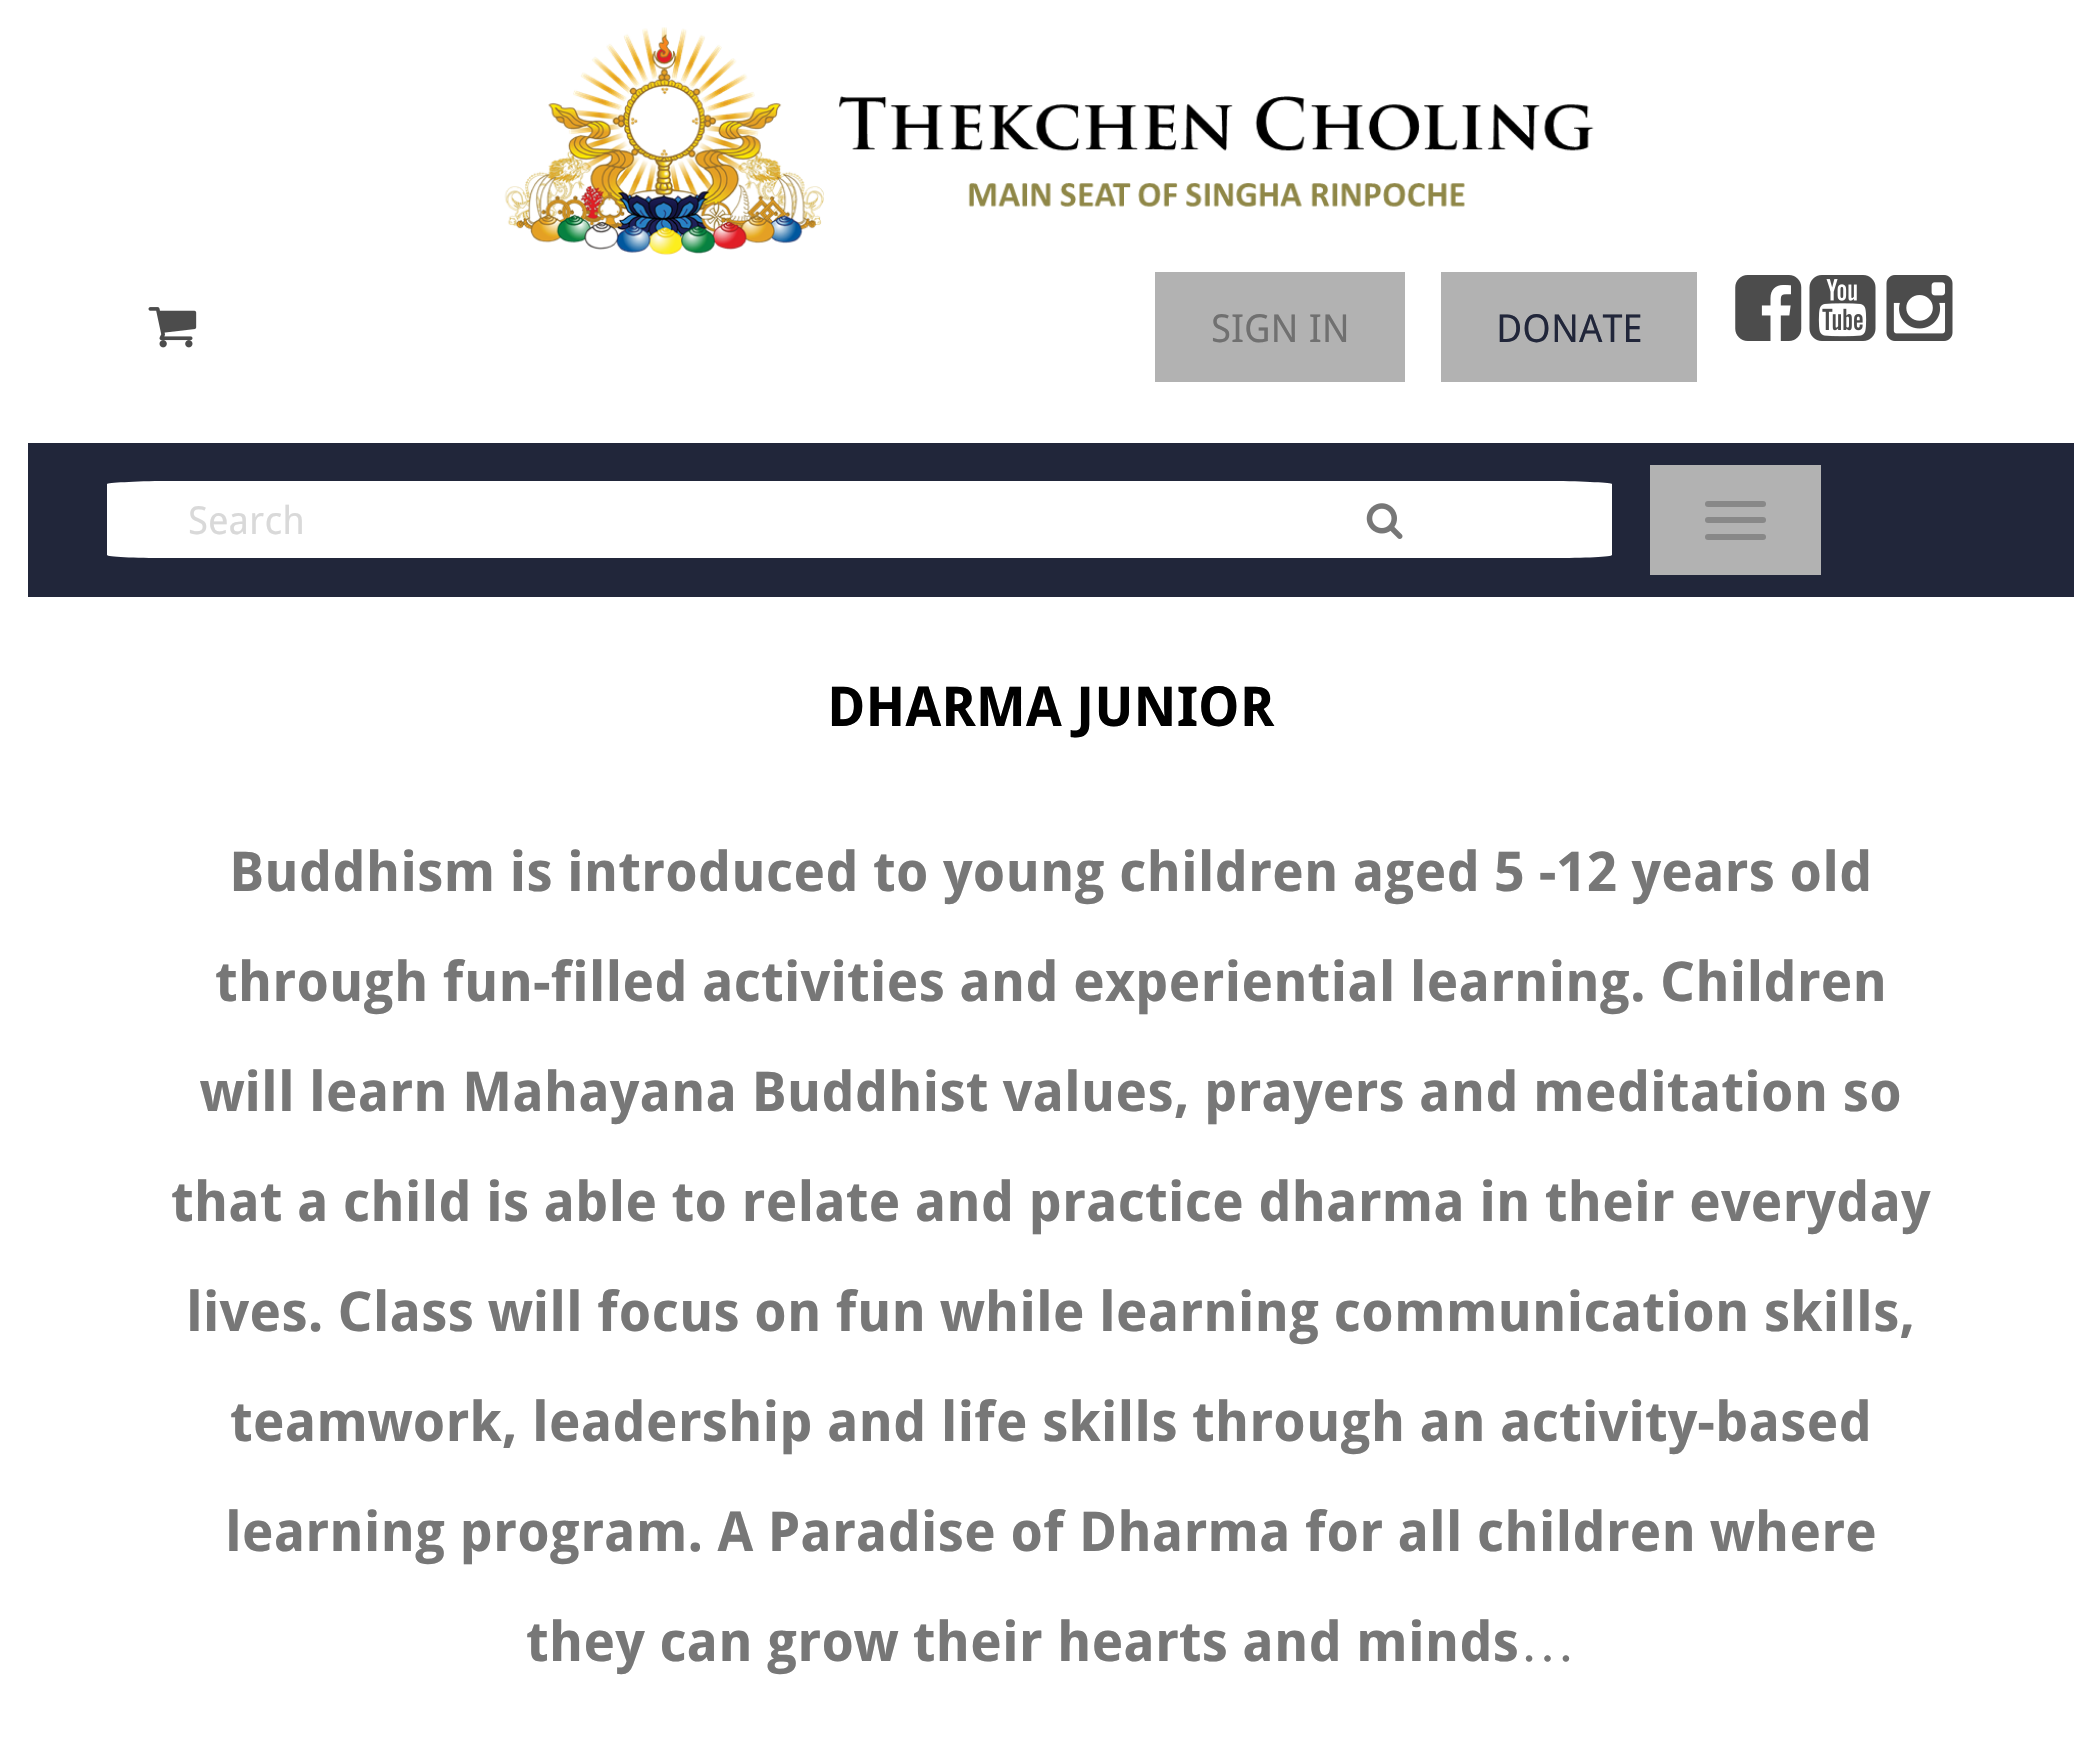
#include "include/core/SkBlurTypes.h"
#include "include/core/SkCanvas.h"
#include "include/core/SkData.h"
#include "include/core/SkFont.h"
#include "include/core/SkFontMgr.h"
#include "include/core/SkImage.h"
#include "include/core/SkMaskFilter.h"
#include "include/core/SkPaint.h"
#include "include/core/SkPathBuilder.h"
#include "include/core/SkTextBlob.h"
#include "include/effects/SkDashPathEffect.h"
#include "include/effects/SkGradientShader.h"
#include "include/utils/SkParsePath.h"

extern sk_sp<SkFontMgr> fontMgr;

void draw(SkCanvas* canvas) {
    SkPaint p;
    p.setAntiAlias(true);
    auto font = [&](const char* family, int weight, float size, bool italic = false) {
        SkFontStyle style(weight, SkFontStyle::kNormal_Width,
            italic ? SkFontStyle::kItalic_Slant : SkFontStyle::kUpright_Slant);
        SkFont result(fontMgr->matchFamilyStyle(family, style), size);
        result.setSubpixel(true);
        return result;
    };
    auto drawPhoto = [&](const char* path, float l, float t, float r, float b) {
        auto image = SkImages::DeferredFromEncodedData(SkData::MakeFromFileName(path));
        canvas->drawImageRect(image, SkRect::MakeLTRB(l, t, r, b), SkSamplingOptions());
    };
    canvas->clear(0xFFFFFFFF);
    drawPhoto("media/1.png", 504, 27, 1594, 255);
    drawPhoto("media/2.png", 148, 307, 197, 348);
    p.setColor(0xFFB2B2B2);
    canvas->drawRect(SkRect::MakeLTRB(1155, 272, 1405, 382), p);
    auto font1 = font("Droid Sans", 400, 38.5f);
    p.setColor(0xFF707070);
    canvas->drawString("SIGN IN", 1211, 342, font1, p);
    p.setColor(0xFFB2B2B2);
    canvas->drawRect(SkRect::MakeLTRB(1441, 272, 1697, 382), p);
    p.setColor(0xFF21263A);
    canvas->drawString("DONATE", 1496, 342, font1, p);
    drawPhoto("media/3.png", 1735, 275, 1802, 341);
    drawPhoto("media/4.png", 1809, 275, 1876, 341);
    drawPhoto("media/5.png", 1886, 275, 1953, 341);
    canvas->drawRect(SkRect::MakeLTRB(28, 443, 2074, 597), p);
    p.setColor(0xFFFFFFFF);
    canvas->drawPath(SkPathBuilder().moveTo(167, 481).lineTo(1551, 481).cubicTo(1585, 481, 1612, 483, 1612, 484).lineTo(1612, 555).cubicTo(1612, 557, 1585, 558, 1551, 558).lineTo(167, 558).cubicTo(134, 558, 107, 557, 107, 555).lineTo(107, 484).cubicTo(107, 483, 134, 481, 167, 481).close().detach(), p);
    p.setColor(0xFFD9D9D9);
    canvas->drawString("Search", 188, 534, font1, p);
    drawPhoto("media/6.png", 1366, 503, 1403, 539);
    p.setColor(0xFFB2B2B2);
    canvas->drawRect(SkRect::MakeLTRB(1650, 465, 1821, 575), p);
    p.setColor(0xFF888888);
    canvas->drawRoundRect(SkRect::MakeLTRB(1705, 501, 1766, 507), 3, 3, p);
    canvas->drawRoundRect(SkRect::MakeLTRB(1705, 517, 1766, 523), 3, 3, p);
    canvas->drawRoundRect(SkRect::MakeLTRB(1705, 534, 1766, 540), 3, 3, p);
    auto font2 = font("Droid Sans", 700, 55);
    p.setColor(0xFF000000);
    canvas->drawString("DHARMA JUNIOR", 827, 726, font2, p);
    p.setColor(0xFF777777);
    {
        const struct { const char* s; float x, y; } items[] = {
            {"Buddhism is introduced to young children aged 5 -12 years old", 229, 891},
            {"through fun-filled activities and experiential learning. Children", 215, 1001},
            {"will learn Mahayana Buddhist values, prayers and meditation so", 200, 1111},
            {"that a child is able to relate and practice dharma in their everyday", 171, 1221},
            {"lives. Class will focus on fun while learning communication skills,", 186, 1331},
            {"teamwork, leadership and life skills through an activity-based", 230, 1441},
            {"learning program. A Paradise of Dharma for all children where", 225, 1551},
            {"they can grow their hearts and minds", 526, 1661},
        };
        for (auto [s, x, y] : items) {
            canvas->drawString(s, x, y, font2, p);
        }
    }
    auto font3 = font("Liberation Serif", 400, 55);
    canvas->drawString("…", 1520, 1661, font3, p);
}
